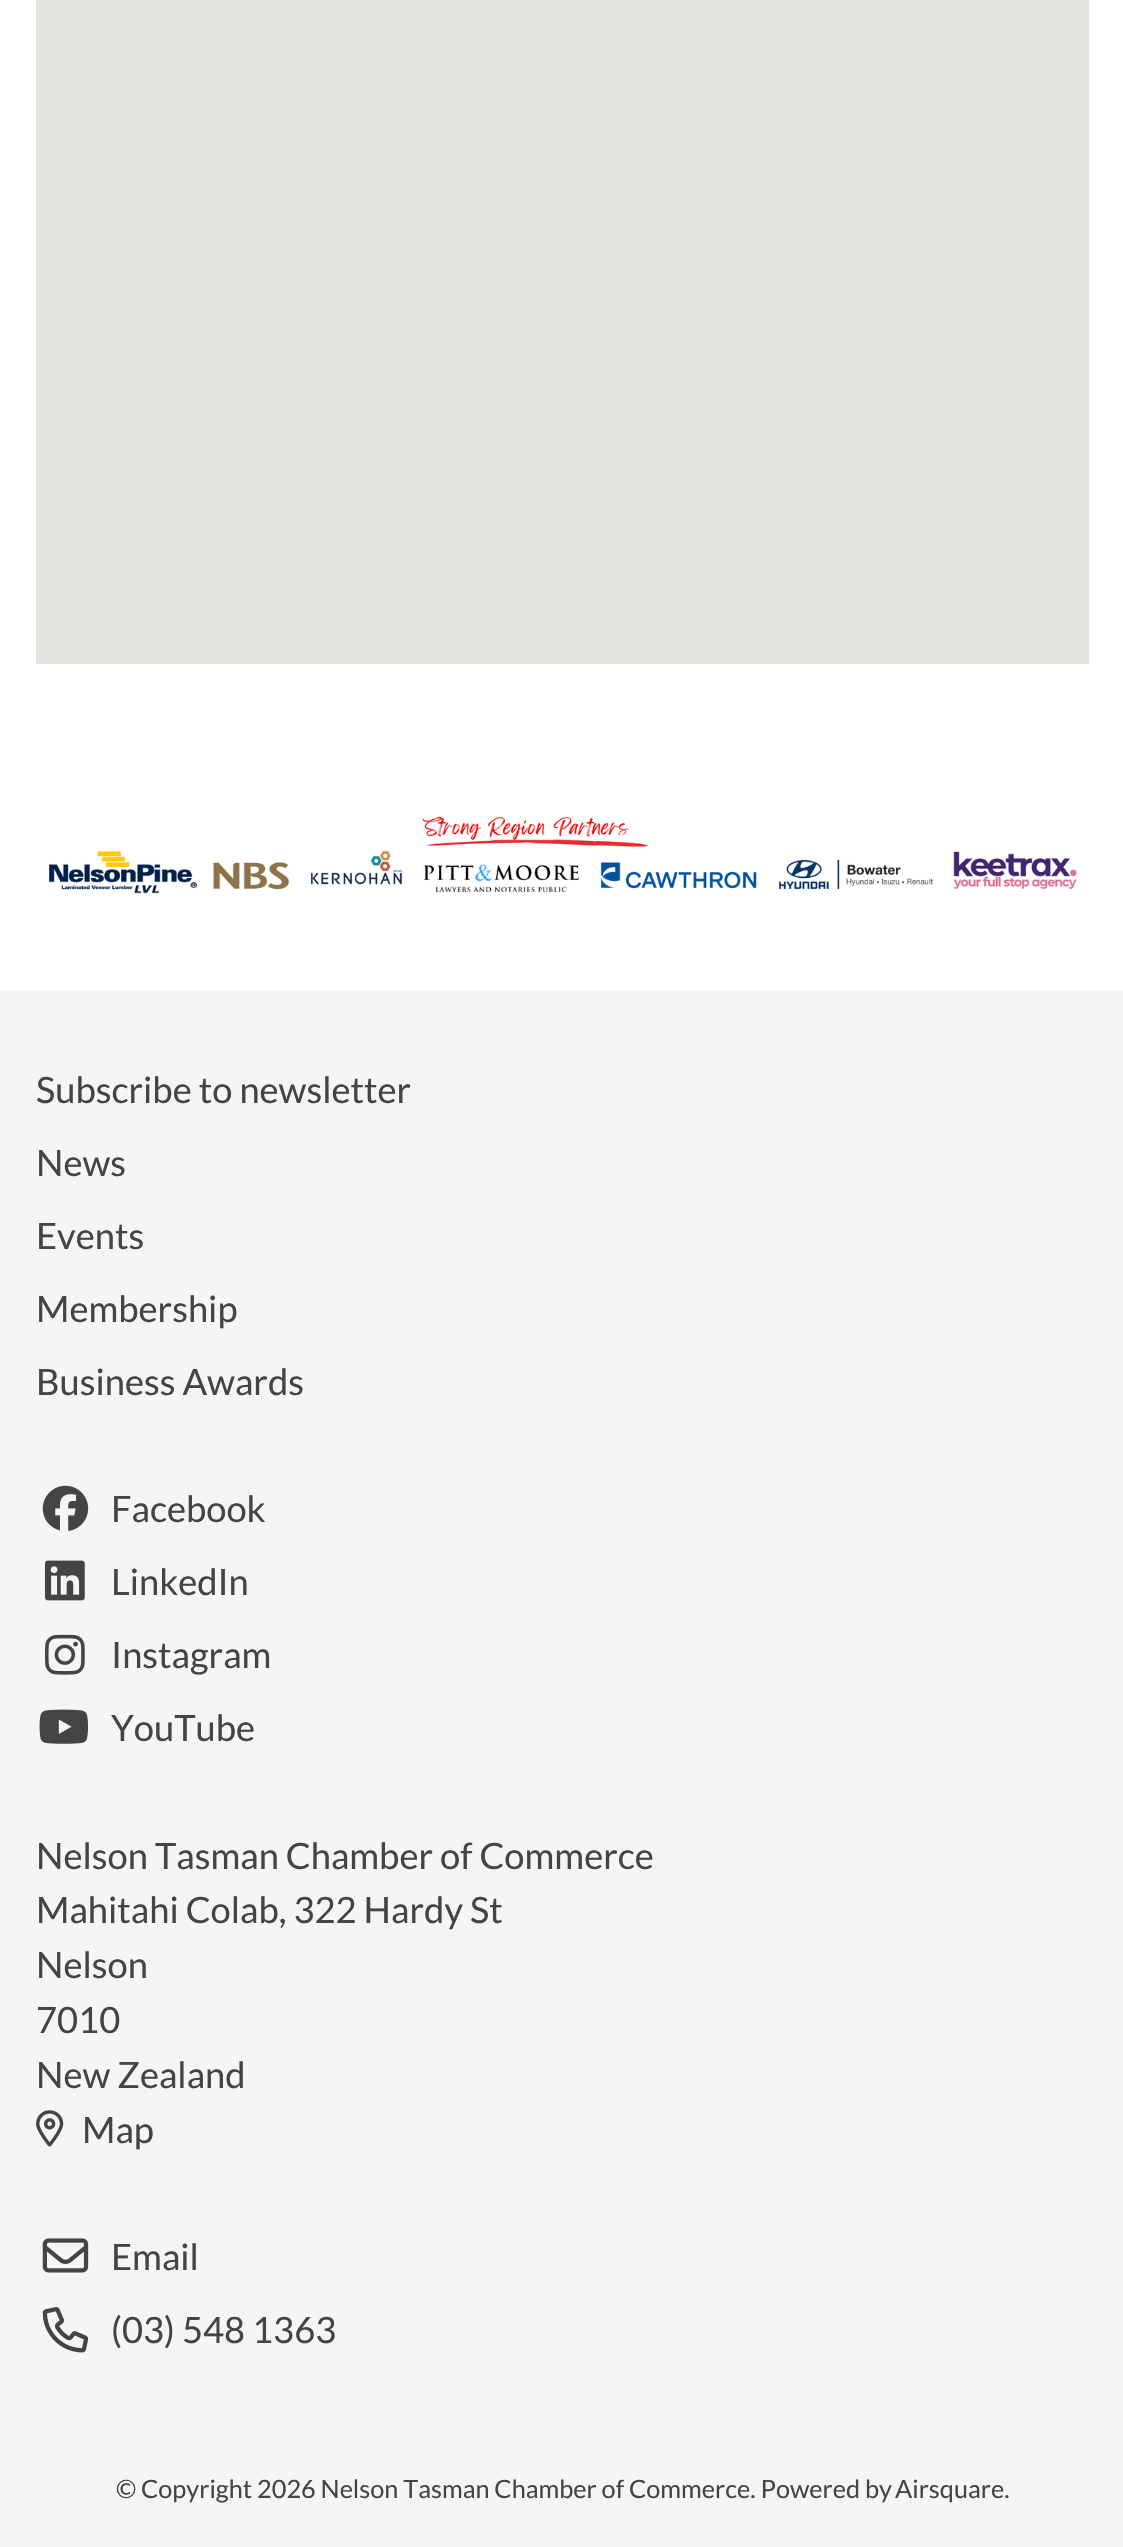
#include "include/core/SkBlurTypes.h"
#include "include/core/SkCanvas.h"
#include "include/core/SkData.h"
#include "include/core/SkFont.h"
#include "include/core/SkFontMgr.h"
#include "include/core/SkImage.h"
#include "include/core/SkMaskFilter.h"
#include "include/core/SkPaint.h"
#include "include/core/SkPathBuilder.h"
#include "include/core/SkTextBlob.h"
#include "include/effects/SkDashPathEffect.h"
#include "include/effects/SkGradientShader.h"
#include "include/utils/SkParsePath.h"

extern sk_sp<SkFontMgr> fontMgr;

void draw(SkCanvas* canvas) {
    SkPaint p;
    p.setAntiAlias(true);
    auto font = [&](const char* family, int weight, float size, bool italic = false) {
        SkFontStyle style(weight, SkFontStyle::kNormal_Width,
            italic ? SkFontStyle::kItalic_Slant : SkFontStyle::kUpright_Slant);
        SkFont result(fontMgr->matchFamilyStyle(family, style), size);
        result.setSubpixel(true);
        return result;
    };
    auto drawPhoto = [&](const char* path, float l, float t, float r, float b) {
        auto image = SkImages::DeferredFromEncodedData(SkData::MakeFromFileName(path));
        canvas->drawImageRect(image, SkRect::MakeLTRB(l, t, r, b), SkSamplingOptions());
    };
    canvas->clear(0xFFFFFFFF);
    p.setColor(0xFFE5E3DF);
    canvas->drawRect(SkRect::MakeLTRB(36, 0, 1089, 664), p);
    p.setColor(0xFFF5F5F5);
    canvas->drawRect(SkRect::MakeLTRB(0, 990, 1123, 2547), p);
    drawPhoto("media/1.png", 48, 816, 1077, 894);
    auto font1 = font("Lato", 400, 36.3f);
    p.setColor(0xFF444444);
    {
        const struct { const char* s; float x, y; } items[] = {
            {"Subscribe to newsletter", 36, 1103},
            {"News", 36, 1176},
            {"Events", 36, 1249},
            {"Membership", 36, 1322},
            {"Business Awards", 36, 1395},
        };
        for (auto [s, x, y] : items) {
            canvas->drawString(s, x, y, font1, p);
        }
    }
    drawPhoto("media/2.png", 42, 1485, 89, 1531);
    canvas->drawString("Facebook", 111, 1522, font1, p);
    drawPhoto("media/3.png", 45, 1560, 85, 1601);
    canvas->drawString("LinkedIn", 111, 1595, font1, p);
    drawPhoto("media/4.png", 45, 1634, 85, 1675);
    canvas->drawString("Instagram", 111, 1668, font1, p);
    drawPhoto("media/5.png", 39, 1709, 88, 1744);
    {
        const struct { const char* s; float x, y; } items[] = {
            {"YouTube", 111, 1741},
            {"Nelson Tasman Chamber of Commerce", 36, 1869},
            {"Mahitahi Colab, 322 Hardy St", 36, 1923},
            {"Nelson", 36, 1978},
            {"7010", 36, 2033},
            {"New Zealand", 36, 2088},
        };
        for (auto [s, x, y] : items) {
            canvas->drawString(s, x, y, font1, p);
        }
    }
    drawPhoto("media/6.png", 36, 2110, 64, 2147);
    canvas->drawString("Map", 82, 2143, font1, p);
    drawPhoto("media/7.png", 42, 2238, 89, 2273);
    canvas->drawString("Email", 111, 2270, font1, p);
    drawPhoto("media/8.png", 42, 2307, 89, 2353);
    canvas->drawString("(03) 548 1363", 111, 2343, font1, p);
    auto font2 = font("Lato", 400, 25.25f);
    canvas->drawString("© Copyright 2026 Nelson Tasman Chamber of Commerce. Powered by", 116, 2498, font2, p);
    canvas->drawString("Airsquare.", 895, 2498, font2, p);
}
